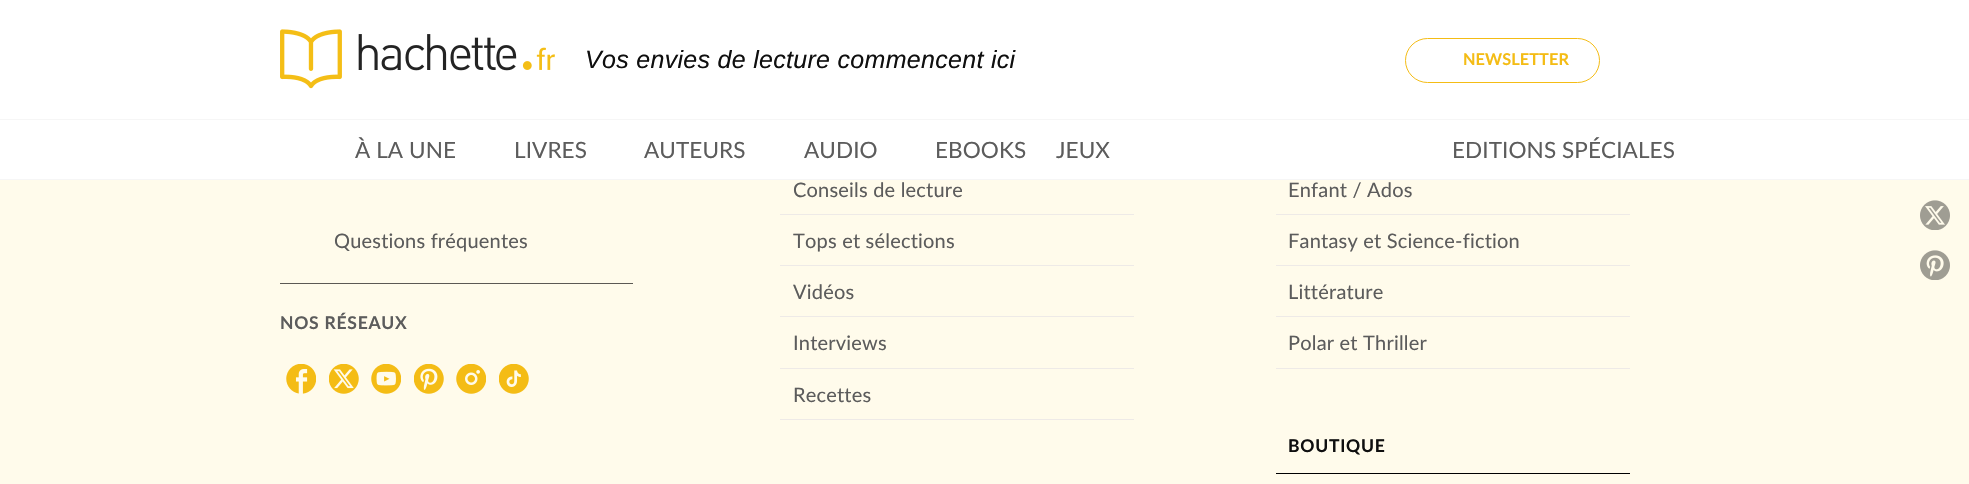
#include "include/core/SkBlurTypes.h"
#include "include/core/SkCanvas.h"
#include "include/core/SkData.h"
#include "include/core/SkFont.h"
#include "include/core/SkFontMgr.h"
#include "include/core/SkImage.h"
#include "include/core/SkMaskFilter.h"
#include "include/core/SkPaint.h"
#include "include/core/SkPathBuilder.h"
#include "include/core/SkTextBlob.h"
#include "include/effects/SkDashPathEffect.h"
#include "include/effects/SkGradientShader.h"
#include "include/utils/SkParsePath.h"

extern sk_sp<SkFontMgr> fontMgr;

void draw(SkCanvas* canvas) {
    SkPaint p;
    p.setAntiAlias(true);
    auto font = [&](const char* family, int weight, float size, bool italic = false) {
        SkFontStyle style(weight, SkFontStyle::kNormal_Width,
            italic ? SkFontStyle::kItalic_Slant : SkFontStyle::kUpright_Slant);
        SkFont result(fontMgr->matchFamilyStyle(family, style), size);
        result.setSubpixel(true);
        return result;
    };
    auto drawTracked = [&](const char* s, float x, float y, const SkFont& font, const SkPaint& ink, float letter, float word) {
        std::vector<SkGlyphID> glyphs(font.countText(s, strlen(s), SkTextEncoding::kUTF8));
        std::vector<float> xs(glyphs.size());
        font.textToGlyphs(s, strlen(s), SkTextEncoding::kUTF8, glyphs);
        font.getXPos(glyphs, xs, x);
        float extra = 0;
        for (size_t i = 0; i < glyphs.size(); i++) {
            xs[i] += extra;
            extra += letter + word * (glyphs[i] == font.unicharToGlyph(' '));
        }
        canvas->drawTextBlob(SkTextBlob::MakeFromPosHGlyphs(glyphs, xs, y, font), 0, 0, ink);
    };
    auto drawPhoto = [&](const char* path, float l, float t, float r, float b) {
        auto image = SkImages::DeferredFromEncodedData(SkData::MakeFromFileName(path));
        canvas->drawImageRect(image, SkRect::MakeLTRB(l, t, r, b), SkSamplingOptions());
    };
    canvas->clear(0xFFFFFBEB);
    p.setColor(0xFFFFFFFF);
    canvas->drawRect(SkRect::MakeLTRB(0, 0, 1969, 119), p);
    p.setColor(0xFFF6F6F6);
    canvas->drawRect(SkRect::MakeLTRB(0, 119, 1969, 120), p);
    drawPhoto("media/1.png", 280, 29, 555, 89);
    auto font1 = font("Liberation Sans", 400, 25, true);
    p.setColor(0xFF0F0F0F);
    drawTracked("Vos envies de lecture commencent ici", 585, 68, font1, p, 0.3f, 0);
    p.setStyle(SkPaint::kStroke_Style);
    p.setStrokeWidth(1);
    p.setColor(0xFFF4BC15);
    canvas->drawRoundRect(SkRect::MakeLTRB(1405.5f, 38.5f, 1599.5f, 82.5f), 22, 22, p);
    auto font2 = font("Lato", 700, 16.25f);
    p.setStyle(SkPaint::kFill_Style);
    drawTracked("NEWSLETTER", 1463, 65, font2, p, 0.1f, 0);
    p.setColor(0xFFFFFFFF);
    canvas->drawRect(SkRect::MakeLTRB(0, 120, 1969, 179), p);
    auto font3 = font("Lato", 400, 22.5f);
    p.setColor(0xFF5C5C5C);
    {
        const struct { const char* s; float x, y; } items[] = {
            {"À LA UNE", 355, 158},
            {"LIVRES", 514, 158},
            {"AUTEURS", 644, 158},
            {"AUDIO", 804, 158},
            {"EBOOKS", 935, 158},
            {"JEUX", 1056, 158},
            {"EDITIONS SPÉCIALES", 1452, 158},
        };
        for (auto [s, x, y] : items) {
            drawTracked(s, x, y, font3, p, 0.1f, 0);
        }
    }
    p.setColor(0xFFF6F6F6);
    canvas->drawRect(SkRect::MakeLTRB(0, 179, 1969, 180), p);
    auto font4 = font("Lato", 400, 20);
    p.setColor(0xFF5C5C5C);
    drawTracked("Questions fréquentes", 334, 248, font4, p, 0.2f, 0);
    p.setColor(0xFF5B5954);
    canvas->drawRect(SkRect::MakeLTRB(280, 283, 633, 284), p);
    auto font5 = font("Lato", 700, 17.5f);
    p.setColor(0xFF5C5C5C);
    drawTracked("NOS RÉSEAUX", 280, 329, font5, p, 0.75f, 0);
    drawPhoto("media/2.png", 286, 364, 316, 394);
    drawPhoto("media/3.png", 329, 364, 359, 394);
    drawPhoto("media/4.png", 371, 364, 401, 394);
    drawPhoto("media/5.png", 414, 364, 444, 394);
    drawPhoto("media/6.png", 456, 364, 486, 394);
    drawPhoto("media/7.png", 499, 364, 529, 394);
    p.setColor(0xFFEEEAE7);
    canvas->drawRect(SkRect::MakeLTRB(780, 214, 1134, 215), p);
    p.setColor(0xFF5C5C5C);
    drawTracked("Conseils de lecture", 793, 197, font4, p, 0.2f, 0);
    p.setColor(0xFFEEEAE7);
    canvas->drawRect(SkRect::MakeLTRB(780, 265, 1134, 266), p);
    p.setColor(0xFF5C5C5C);
    drawTracked("Tops et sélections", 793, 248, font4, p, 0.2f, 0);
    p.setColor(0xFFEEEAE7);
    canvas->drawRect(SkRect::MakeLTRB(780, 316, 1134, 317), p);
    p.setColor(0xFF5C5C5C);
    drawTracked("Vidéos", 793, 299, font4, p, 0.2f, 0);
    p.setColor(0xFFEEEAE7);
    canvas->drawRect(SkRect::MakeLTRB(780, 368, 1134, 369), p);
    p.setColor(0xFF5C5C5C);
    drawTracked("Interviews", 793, 350, font4, p, 0.2f, 0);
    p.setColor(0xFFEEEAE7);
    canvas->drawRect(SkRect::MakeLTRB(780, 419, 1134, 420), p);
    p.setColor(0xFF5C5C5C);
    drawTracked("Recettes", 793, 402, font4, p, 0.2f, 0);
    p.setColor(0xFFEEEAE7);
    canvas->drawRect(SkRect::MakeLTRB(1276, 214, 1630, 215), p);
    p.setColor(0xFF5C5C5C);
    drawTracked("Enfant / Ados", 1288, 197, font4, p, 0.2f, 0);
    p.setColor(0xFFEEEAE7);
    canvas->drawRect(SkRect::MakeLTRB(1276, 265, 1630, 266), p);
    p.setColor(0xFF5C5C5C);
    drawTracked("Fantasy et Science-fiction", 1288, 248, font4, p, 0.2f, 0);
    p.setColor(0xFFEEEAE7);
    canvas->drawRect(SkRect::MakeLTRB(1276, 316, 1630, 317), p);
    p.setColor(0xFF5C5C5C);
    drawTracked("Littérature", 1288, 299, font4, p, 0.2f, 0);
    p.setColor(0xFFEEEAE7);
    canvas->drawRect(SkRect::MakeLTRB(1276, 368, 1630, 369), p);
    p.setColor(0xFF5C5C5C);
    drawTracked("Polar et Thriller", 1288, 350, font4, p, 0.2f, 0);
    p.setColor(0xFF000000);
    canvas->drawRect(SkRect::MakeLTRB(1276, 473, 1630, 474), p);
    p.setColor(0xFF0F0F0F);
    drawTracked("BOUTIQUE", 1288, 452, font5, p, 0.75f, 0);
    drawPhoto("media/8.png", 1920, 200, 1950, 230);
    drawPhoto("media/9.png", 1920, 250, 1950, 280);
}
